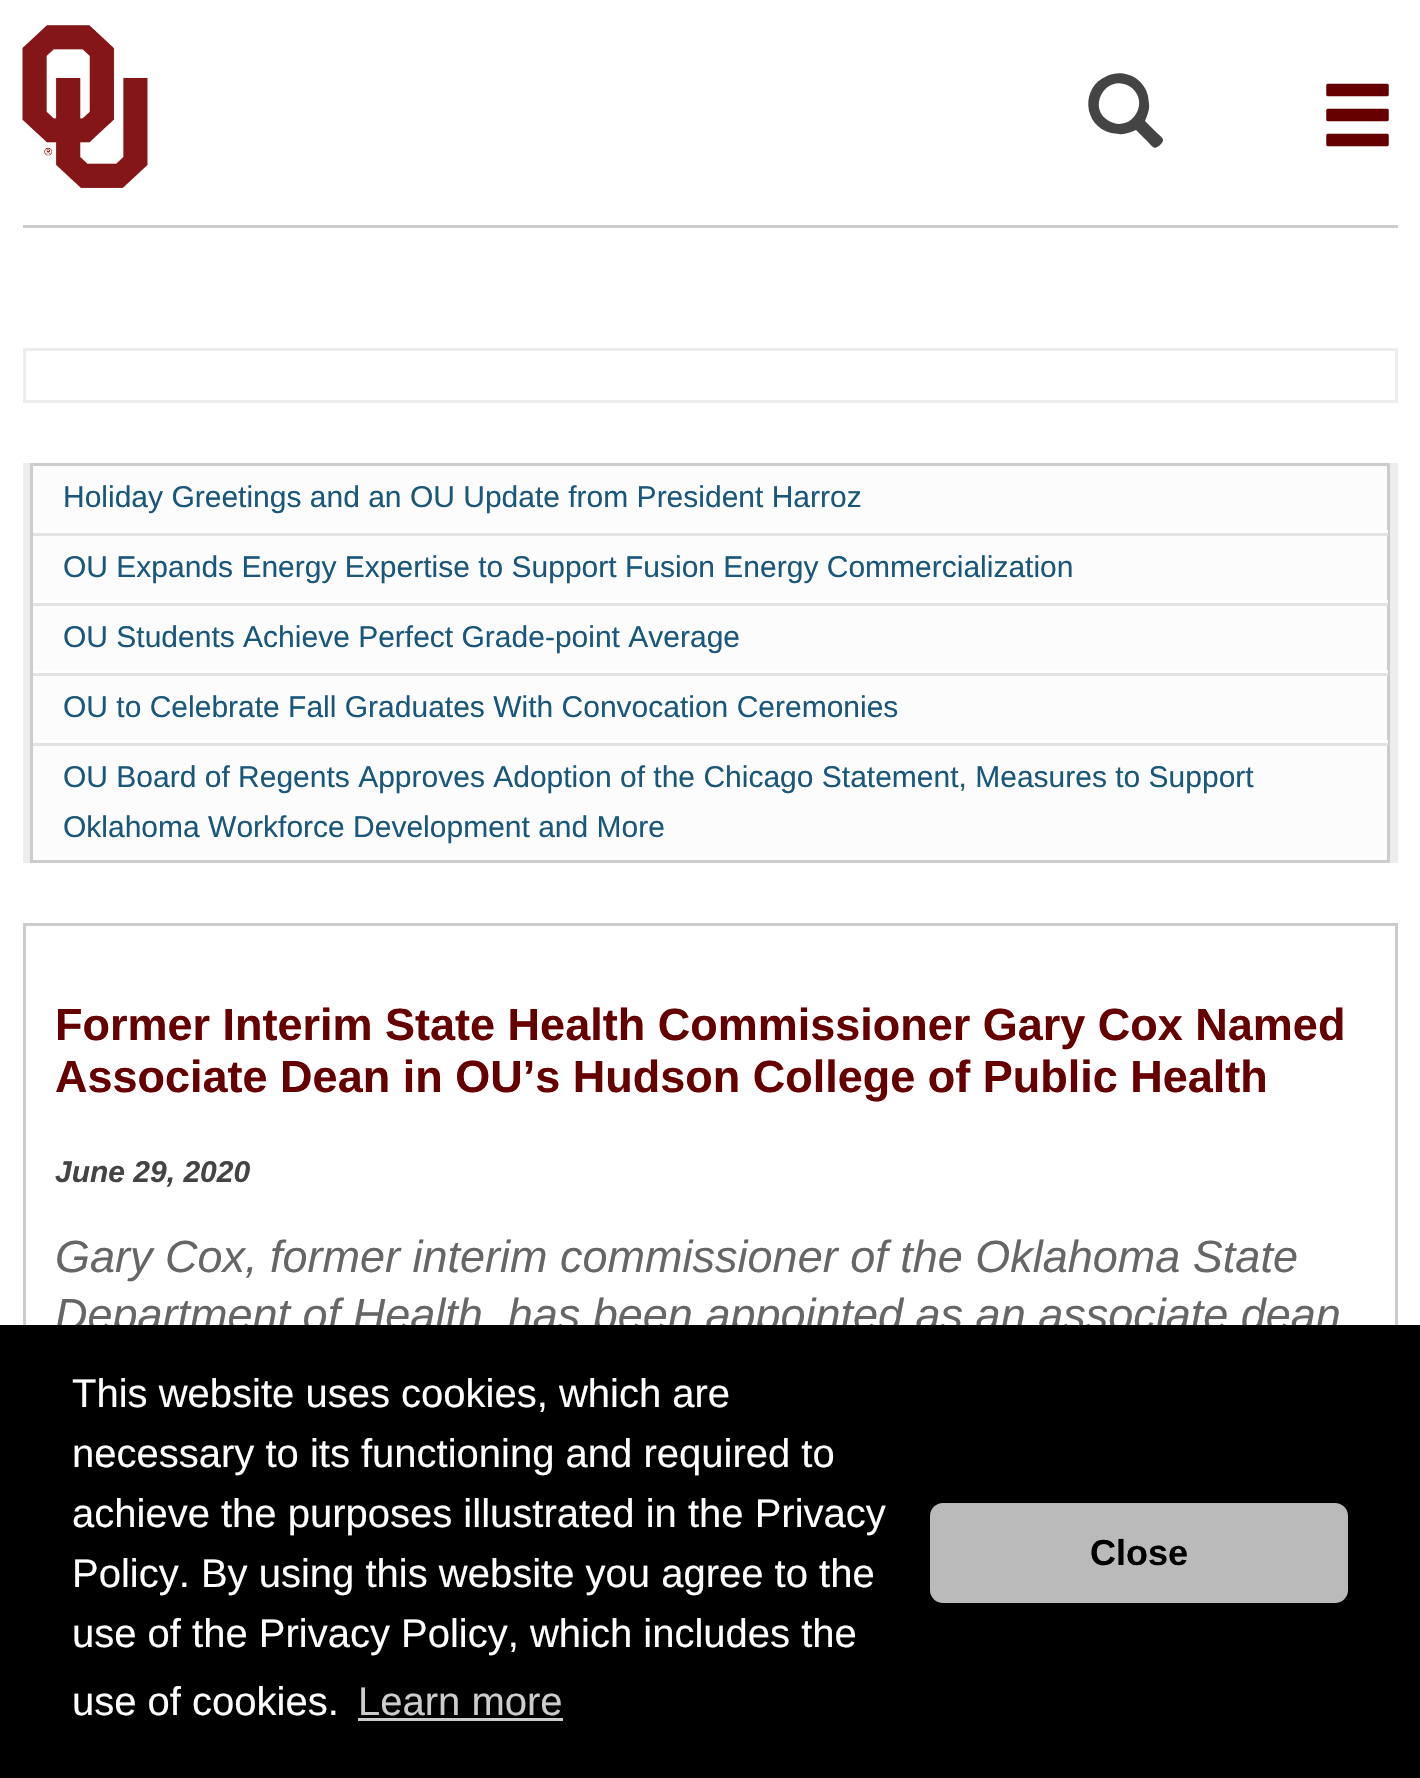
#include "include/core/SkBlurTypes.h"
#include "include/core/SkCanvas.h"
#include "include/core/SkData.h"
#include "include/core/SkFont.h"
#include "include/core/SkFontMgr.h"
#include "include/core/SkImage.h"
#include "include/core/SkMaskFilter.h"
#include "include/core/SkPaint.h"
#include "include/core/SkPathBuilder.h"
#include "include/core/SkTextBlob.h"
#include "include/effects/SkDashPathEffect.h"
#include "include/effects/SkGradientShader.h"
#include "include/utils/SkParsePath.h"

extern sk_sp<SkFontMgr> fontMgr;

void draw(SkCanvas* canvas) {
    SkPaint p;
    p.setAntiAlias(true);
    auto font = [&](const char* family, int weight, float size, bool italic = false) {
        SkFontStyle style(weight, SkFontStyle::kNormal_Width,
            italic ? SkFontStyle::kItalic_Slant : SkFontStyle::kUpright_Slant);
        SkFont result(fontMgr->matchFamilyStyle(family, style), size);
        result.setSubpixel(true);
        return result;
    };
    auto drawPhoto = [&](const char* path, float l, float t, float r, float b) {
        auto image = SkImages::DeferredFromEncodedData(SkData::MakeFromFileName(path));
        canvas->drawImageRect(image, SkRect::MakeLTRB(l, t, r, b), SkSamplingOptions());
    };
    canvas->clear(0xFFFFFFFF);
    drawPhoto("media/1.png", 22, 25, 148, 188);
    p.setColor(0xFF444444);
    canvas->drawPath(SkPathBuilder().moveTo(1107, 76).cubicTo(1124, 68, 1144, 78, 1148, 96).lineTo(1149, 104).cubicTo(1150, 109, 1147, 116, 1145, 121).lineTo(1156, 132).cubicTo(1161, 137, 1166, 139, 1161, 144).cubicTo(1154, 151, 1153, 147, 1147, 141).lineTo(1136, 130).cubicTo(1131, 132, 1124, 135, 1119, 134).lineTo(1111, 133).cubicTo(1083, 126, 1080, 87, 1107, 76).close().moveTo(1129, 86).cubicTo(1106, 73, 1086, 108, 1109, 121).cubicTo(1132, 134, 1152, 100, 1129, 86).close().detach(), p);
    drawPhoto("media/2.png", 1326, 83, 1389, 147);
    p.setColor(0xFFCCCCCC);
    canvas->drawRect(SkRect::MakeLTRB(23, 225, 1398, 228), p);
    p.setStyle(SkPaint::kStroke_Style);
    p.setStrokeWidth(3);
    p.setColor(0xFFEDEDED);
    canvas->drawRect(SkRect::MakeLTRB(24.5f, 349.5f, 1396.5f, 401.5f), p);
    p.setStyle(SkPaint::kFill_Style);
    canvas->drawRect(SkRect::MakeLTRB(23, 463, 1398, 863), p);
    p.setColor(0xFFFCFCFC);
    canvas->drawRect(SkRect::MakeLTRB(31.5f, 464.5f, 1388.5f, 861.5f), p);
    p.setStyle(SkPaint::kStroke_Style);
    p.setColor(0xFFCCCCCC);
    canvas->drawRect(SkRect::MakeLTRB(31.5f, 464.5f, 1388.5f, 861.5f), p);
    p.setStyle(SkPaint::kFill_Style);
    p.setColor(0xFFFFFFFF);
    canvas->drawRect(SkRect::MakeLTRB(33, 530, 1388, 533), p);
    auto font1 = font("Liberation Sans", 400, 30);
    p.setColor(0xFF19577B);
    canvas->drawString("Holiday Greetings and an OU Update from President Harroz", 63, 507, font1, p);
    p.setColor(0xFFE3E3E3);
    canvas->drawRect(SkRect::MakeLTRB(33, 533, 1388, 536), p);
    p.setColor(0xFFFFFFFF);
    canvas->drawRect(SkRect::MakeLTRB(33, 600, 1388, 603), p);
    p.setColor(0xFF19577B);
    canvas->drawString("OU Expands Energy Expertise to Support Fusion Energy Commercialization", 63, 577, font1, p);
    p.setColor(0xFFE3E3E3);
    canvas->drawRect(SkRect::MakeLTRB(33, 603, 1388, 606), p);
    p.setColor(0xFFFFFFFF);
    canvas->drawRect(SkRect::MakeLTRB(33, 670, 1388, 673), p);
    p.setColor(0xFF19577B);
    canvas->drawString("OU Students Achieve Perfect Grade-point Average", 63, 647, font1, p);
    p.setColor(0xFFE3E3E3);
    canvas->drawRect(SkRect::MakeLTRB(33, 673, 1388, 676), p);
    p.setColor(0xFFFFFFFF);
    canvas->drawRect(SkRect::MakeLTRB(33, 740, 1388, 743), p);
    p.setColor(0xFF19577B);
    canvas->drawString("OU to Celebrate Fall Graduates With Convocation Ceremonies", 63, 717, font1, p);
    p.setColor(0xFFE3E3E3);
    canvas->drawRect(SkRect::MakeLTRB(33, 743, 1388, 746), p);
    p.setColor(0xFF19577B);
    canvas->drawString("OU Board of Regents Approves Adoption of the Chicago Statement, Measures to Support", 63, 787, font1, p);
    canvas->drawString("Oklahoma Workforce Development and More", 63, 837, font1, p);
    p.setStyle(SkPaint::kStroke_Style);
    p.setColor(0xFFCCCCCC);
    canvas->drawRect(SkRect::MakeLTRB(24.5f, 924.5f, 1396.5f, 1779.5f), p);
    auto font2 = font("Liberation Sans", 700, 45);
    p.setStyle(SkPaint::kFill_Style);
    p.setColor(0xFF660000);
    canvas->drawString("Former Interim State Health Commissioner Gary Cox Named", 55, 1040, font2, p);
    canvas->drawString("Associate Dean in OU’s Hudson College of Public Health", 55, 1092, font2, p);
    auto font3 = font("Liberation Sans", 700, 30, true);
    p.setColor(0xFF444444);
    canvas->drawString("June 29, 2020", 55, 1182, font3, p);
    auto font4 = font("Liberation Sans", 400, 45, true);
    p.setColor(0xFF666666);
    canvas->drawString("Gary Cox, former interim commissioner of the Oklahoma State", 55, 1272, font4, p);
    canvas->drawString("Department of Health, has been appointed as an associate dean", 55, 1330, font4, p);
    p.setColor(0xFF000000);
    canvas->drawRect(SkRect::MakeLTRB(0, 1325, 1420, 1778), p);
    auto font5 = font("Liberation Sans", 400, 40);
    p.setColor(0xFFFFFFFF);
    {
        const struct { const char* s; float x, y; } items[] = {
            {"This website uses cookies, which are", 72, 1407},
            {"necessary to its functioning and required to", 72, 1467},
            {"achieve the purposes illustrated in the Privacy", 72, 1527},
            {"Policy. By using this website you agree to the", 72, 1587},
            {"use of the Privacy Policy, which includes the", 72, 1647},
            {"use of cookies.", 72, 1715},
        };
        for (auto [s, x, y] : items) {
            canvas->drawString(s, x, y, font5, p);
        }
    }
    p.setColor(0xFFCCCCCC);
    canvas->drawString("Learn more", 358, 1715, font5, p);
    canvas->drawRect(SkRect::MakeLTRB(358, 1718, 563, 1721), p);
    p.setColor(0xFFBABABA);
    canvas->drawRoundRect(SkRect::MakeLTRB(930, 1503, 1348, 1603), 13, 13, p);
    auto font6 = font("Liberation Sans", 700, 36);
    p.setColor(0xFF000000);
    canvas->drawString("Close", 1090, 1565, font6, p);
}
